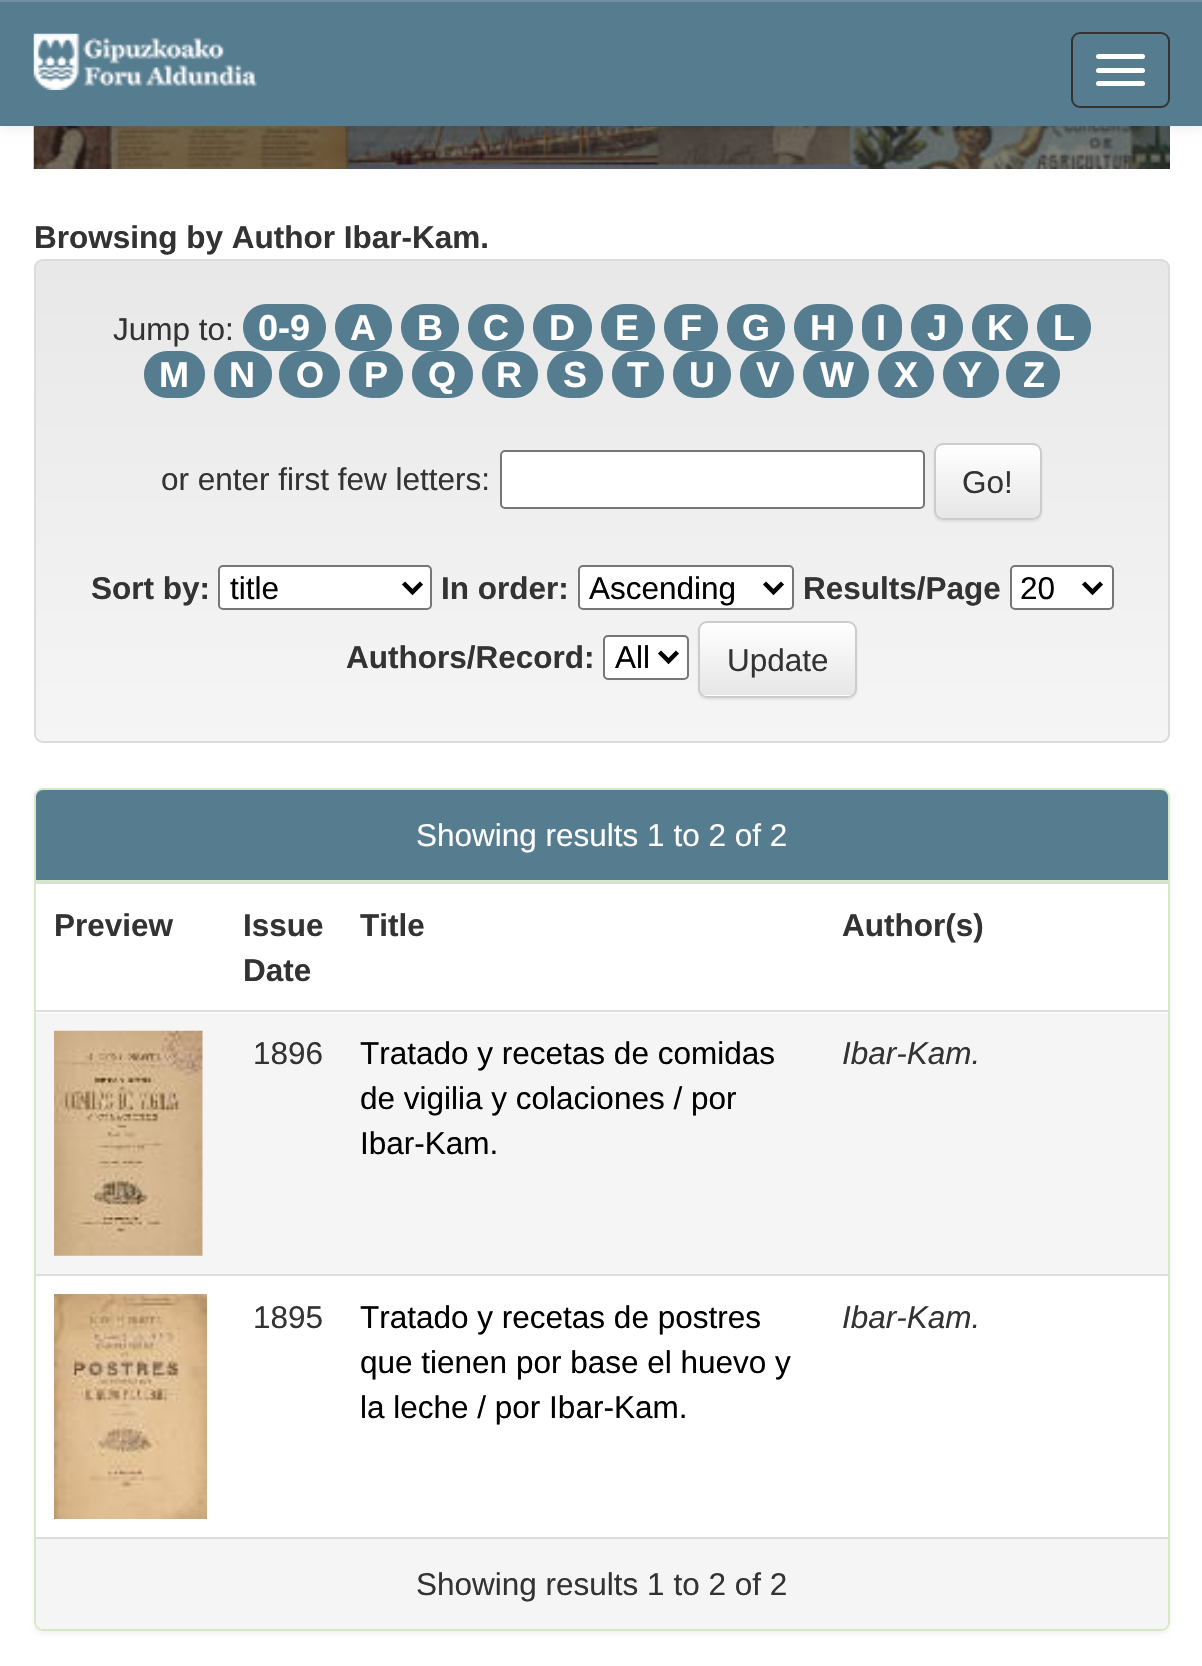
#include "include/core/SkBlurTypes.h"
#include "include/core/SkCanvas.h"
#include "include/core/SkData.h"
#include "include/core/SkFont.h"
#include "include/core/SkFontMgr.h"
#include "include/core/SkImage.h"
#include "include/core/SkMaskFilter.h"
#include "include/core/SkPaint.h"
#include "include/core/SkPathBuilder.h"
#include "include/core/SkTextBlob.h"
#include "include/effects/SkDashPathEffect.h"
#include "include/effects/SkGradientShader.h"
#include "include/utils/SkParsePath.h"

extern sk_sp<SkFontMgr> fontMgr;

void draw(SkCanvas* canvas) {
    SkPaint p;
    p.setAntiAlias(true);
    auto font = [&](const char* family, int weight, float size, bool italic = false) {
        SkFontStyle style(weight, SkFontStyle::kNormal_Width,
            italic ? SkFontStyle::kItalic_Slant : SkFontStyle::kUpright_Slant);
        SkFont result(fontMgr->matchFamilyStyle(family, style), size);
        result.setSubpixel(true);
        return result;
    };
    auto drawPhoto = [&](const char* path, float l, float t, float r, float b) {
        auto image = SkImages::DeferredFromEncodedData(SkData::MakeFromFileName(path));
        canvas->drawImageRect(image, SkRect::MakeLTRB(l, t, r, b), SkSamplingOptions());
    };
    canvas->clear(0xFFFFFFFF);
    drawPhoto("media/2.png", 33, 126, 1170, 169);
    p.setColor(0x12000000);
    p.setMaskFilter(SkMaskFilter::MakeBlur(kNormal_SkBlurStyle, 5.5f));
    canvas->drawRect(SkRect::MakeLTRB(0, 2, 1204, 128), p);
    p.setMaskFilter(nullptr);
    p.setColor(0xFF557C8F);
    canvas->drawRect(SkRect::MakeLTRB(0, 2, 1202, 126), p);
    p.setColor(0xFF6F90A0);
    canvas->drawRect(SkRect::MakeLTRB(0, 0, 1202, 2), p);
    drawPhoto("media/1.png", 33, 33, 257, 90);
    p.setStyle(SkPaint::kStroke_Style);
    p.setStrokeWidth(2);
    p.setColor(0xFF333333);
    canvas->drawRoundRect(SkRect::MakeLTRB(1072, 33, 1169, 107), 8, 8, p);
    p.setStyle(SkPaint::kFill_Style);
    p.setColor(0xFFFFFFFF);
    canvas->drawRoundRect(SkRect::MakeLTRB(1096, 54, 1145, 59), 2.5f, 2.5f, p);
    canvas->drawRoundRect(SkRect::MakeLTRB(1096, 68, 1145, 73), 2.5f, 2.5f, p);
    canvas->drawRoundRect(SkRect::MakeLTRB(1096, 81, 1145, 86), 2.5f, 2.5f, p);
    auto font1 = font("Liberation Sans", 700, 31.5f);
    p.setColor(0xFF333333);
    canvas->drawString("Browsing by Author Ibar-Kam.", 34, 248, font1, p);
    p.setColor(0xFFF5F5F5);
    canvas->drawRoundRect(SkRect::MakeLTRB(34, 259, 1170, 743), 9, 9, p);
    canvas->save();
    canvas->clipPath(SkPathBuilder().moveTo(43, 259).lineTo(1161, 259).cubicTo(1166, 259, 1170, 263, 1170, 268).lineTo(1170, 734).cubicTo(1170, 739, 1166, 743, 1161, 743).lineTo(43, 743).cubicTo(38, 743, 34, 739, 34, 734).lineTo(34, 268).cubicTo(34, 263, 38, 259, 43, 259).close().detach(), true);
    {
        const SkColor colors[] = {0xFFE8E8E8, 0xFFF5F5F5};
        const float stops[] = {0, 1};
        const SkPoint ends[] = {{602, 261}, {602, 740}};
        p.setShader(SkGradientShader::MakeLinear(ends, colors, stops, 2, SkTileMode::kClamp));
        p.setAlpha(255);
    }
    canvas->drawRect(SkRect::MakeLTRB(34, 261, 1170, 740), p);
    canvas->restore();
    p.setStyle(SkPaint::kStroke_Style);
    p.setShader(nullptr);
    p.setColor(0xFFDCDCDC);
    canvas->drawRoundRect(SkRect::MakeLTRB(35, 260, 1169, 742), 8, 8, p);
    auto font2 = font("Liberation Sans", 400, 31.5f);
    p.setStyle(SkPaint::kFill_Style);
    p.setColor(0xFF333333);
    canvas->drawString("Jump to:", 113, 340, font2, p);
    p.setColor(0xFF557C8F);
    canvas->drawRoundRect(SkRect::MakeLTRB(243, 304, 326, 351), 23, 23, p);
    auto font3 = font("Liberation Sans", 700, 36);
    p.setColor(0xFFFFFFFF);
    canvas->drawString("0-9", 258, 340, font3, p);
    p.setColor(0xFF557C8F);
    canvas->drawRoundRect(SkRect::MakeLTRB(335, 304, 392, 351), 23, 23, p);
    p.setColor(0xFFFFFFFF);
    canvas->drawString("A", 350, 340, font3, p);
    p.setColor(0xFF557C8F);
    canvas->drawRoundRect(SkRect::MakeLTRB(401, 304, 459, 351), 23, 23, p);
    p.setColor(0xFFFFFFFF);
    canvas->drawString("B", 417, 340, font3, p);
    p.setColor(0xFF557C8F);
    canvas->drawRoundRect(SkRect::MakeLTRB(468, 304, 524, 351), 23, 23, p);
    p.setColor(0xFFFFFFFF);
    canvas->drawString("C", 483, 340, font3, p);
    p.setColor(0xFF557C8F);
    canvas->drawRoundRect(SkRect::MakeLTRB(533, 304, 592, 351), 23, 23, p);
    p.setColor(0xFFFFFFFF);
    canvas->drawString("D", 549, 340, font3, p);
    p.setColor(0xFF557C8F);
    canvas->drawRoundRect(SkRect::MakeLTRB(601, 304, 655, 351), 23, 23, p);
    p.setColor(0xFFFFFFFF);
    canvas->drawString("E", 615, 340, font3, p);
    p.setColor(0xFF557C8F);
    canvas->drawRoundRect(SkRect::MakeLTRB(664, 304, 718, 351), 23, 23, p);
    p.setColor(0xFFFFFFFF);
    canvas->drawString("F", 680, 340, font3, p);
    p.setColor(0xFF557C8F);
    canvas->drawRoundRect(SkRect::MakeLTRB(727, 304, 785, 351), 23, 23, p);
    p.setColor(0xFFFFFFFF);
    canvas->drawString("G", 742, 340, font3, p);
    p.setColor(0xFF557C8F);
    canvas->drawRoundRect(SkRect::MakeLTRB(794, 304, 853, 351), 23, 23, p);
    p.setColor(0xFFFFFFFF);
    canvas->drawString("H", 810, 340, font3, p);
    p.setColor(0xFF557C8F);
    canvas->drawRoundRect(SkRect::MakeLTRB(862, 304, 902, 351), 20, 20, p);
    p.setColor(0xFFFFFFFF);
    canvas->drawString("I", 876, 340, font3, p);
    p.setColor(0xFF557C8F);
    canvas->drawRoundRect(SkRect::MakeLTRB(911, 304, 963, 351), 23, 23, p);
    p.setColor(0xFFFFFFFF);
    canvas->drawString("J", 927, 340, font3, p);
    p.setColor(0xFF557C8F);
    canvas->drawRoundRect(SkRect::MakeLTRB(972, 304, 1028, 351), 23, 23, p);
    p.setColor(0xFFFFFFFF);
    canvas->drawString("K", 987, 340, font3, p);
    p.setColor(0xFF557C8F);
    canvas->drawRoundRect(SkRect::MakeLTRB(1037, 304, 1091, 351), 23, 23, p);
    p.setColor(0xFFFFFFFF);
    canvas->drawString("L", 1053, 340, font3, p);
    p.setColor(0xFF557C8F);
    canvas->drawRoundRect(SkRect::MakeLTRB(144, 351, 205, 398), 23, 23, p);
    p.setColor(0xFFFFFFFF);
    canvas->drawString("M", 159, 387, font3, p);
    p.setColor(0xFF557C8F);
    canvas->drawRoundRect(SkRect::MakeLTRB(214, 351, 272, 398), 23, 23, p);
    p.setColor(0xFFFFFFFF);
    canvas->drawString("N", 229, 387, font3, p);
    p.setColor(0xFF557C8F);
    canvas->drawRoundRect(SkRect::MakeLTRB(279, 351, 340, 398), 23, 23, p);
    p.setColor(0xFFFFFFFF);
    canvas->drawString("O", 296, 387, font3, p);
    p.setColor(0xFF557C8F);
    canvas->drawRoundRect(SkRect::MakeLTRB(349, 351, 403, 398), 23, 23, p);
    p.setColor(0xFFFFFFFF);
    canvas->drawString("P", 364, 387, font3, p);
    p.setColor(0xFF557C8F);
    canvas->drawRoundRect(SkRect::MakeLTRB(412, 351, 473, 398), 23, 23, p);
    p.setColor(0xFFFFFFFF);
    canvas->drawString("Q", 428, 387, font3, p);
    p.setColor(0xFF557C8F);
    canvas->drawRoundRect(SkRect::MakeLTRB(482, 351, 538, 398), 23, 23, p);
    p.setColor(0xFFFFFFFF);
    canvas->drawString("R", 496, 387, font3, p);
    p.setColor(0xFF557C8F);
    canvas->drawRoundRect(SkRect::MakeLTRB(547, 351, 603, 398), 23, 23, p);
    p.setColor(0xFFFFFFFF);
    canvas->drawString("S", 563, 387, font3, p);
    p.setColor(0xFF557C8F);
    canvas->drawRoundRect(SkRect::MakeLTRB(612, 351, 664, 398), 23, 23, p);
    p.setColor(0xFFFFFFFF);
    canvas->drawString("T", 627, 387, font3, p);
    p.setColor(0xFF557C8F);
    canvas->drawRoundRect(SkRect::MakeLTRB(673, 351, 731, 398), 23, 23, p);
    p.setColor(0xFFFFFFFF);
    canvas->drawString("U", 689, 387, font3, p);
    p.setColor(0xFF557C8F);
    canvas->drawRoundRect(SkRect::MakeLTRB(740, 351, 794, 398), 23, 23, p);
    p.setColor(0xFFFFFFFF);
    canvas->drawString("V", 756, 387, font3, p);
    p.setColor(0xFF557C8F);
    canvas->drawRoundRect(SkRect::MakeLTRB(803, 351, 869, 398), 23, 23, p);
    p.setColor(0xFFFFFFFF);
    canvas->drawString("W", 820, 387, font3, p);
    p.setColor(0xFF557C8F);
    canvas->drawRoundRect(SkRect::MakeLTRB(878, 351, 934, 398), 23, 23, p);
    p.setColor(0xFFFFFFFF);
    canvas->drawString("X", 894, 387, font3, p);
    p.setColor(0xFF557C8F);
    canvas->drawRoundRect(SkRect::MakeLTRB(943, 351, 999, 398), 23, 23, p);
    p.setColor(0xFFFFFFFF);
    canvas->drawString("Y", 958, 387, font3, p);
    p.setColor(0xFF557C8F);
    canvas->drawRoundRect(SkRect::MakeLTRB(1006, 351, 1060, 398), 23, 23, p);
    p.setColor(0xFFFFFFFF);
    canvas->drawString("Z", 1023, 387, font3, p);
    p.setColor(0xFF333333);
    canvas->drawString("or enter first few letters:", 161, 490, font2, p);
    p.setColor(0xFFFFFFFF);
    canvas->drawRoundRect(SkRect::MakeLTRB(501, 451, 924, 508), 4, 4, p);
    p.setStyle(SkPaint::kStroke_Style);
    p.setColor(0xFF767676);
    canvas->drawRoundRect(SkRect::MakeLTRB(501, 451, 924, 508), 4, 4, p);
    p.setStyle(SkPaint::kFill_Style);
    p.setColor(0x12000000);
    p.setMaskFilter(SkMaskFilter::MakeBlur(kNormal_SkBlurStyle, 1));
    canvas->drawRoundRect(SkRect::MakeLTRB(934, 446, 1042, 522), 9, 9, p);
    p.setMaskFilter(nullptr);
    p.setColor(0xFFFFFFFF);
    canvas->drawRoundRect(SkRect::MakeLTRB(934, 443, 1042, 520), 9, 9, p);
    canvas->save();
    canvas->clipPath(SkPathBuilder().moveTo(943, 443).lineTo(1033, 443).cubicTo(1038, 443, 1042, 447, 1042, 452).lineTo(1042, 511).cubicTo(1042, 516, 1038, 520, 1033, 520).lineTo(943, 520).cubicTo(938, 520, 934, 516, 934, 511).lineTo(934, 452).cubicTo(934, 447, 938, 443, 943, 443).close().detach(), true);
    {
        const SkColor colors[] = {0xFFFFFFFF, 0xFFE6E6E6};
        const float stops[] = {0, 1};
        const SkPoint ends[] = {{988, 446}, {988, 518}};
        p.setShader(SkGradientShader::MakeLinear(ends, colors, stops, 2, SkTileMode::kClamp));
        p.setAlpha(255);
    }
    canvas->drawRect(SkRect::MakeLTRB(934, 446, 1042, 518), p);
    canvas->restore();
    p.setStyle(SkPaint::kStroke_Style);
    p.setShader(nullptr);
    p.setColor(0xFFCCCCCC);
    canvas->drawRoundRect(SkRect::MakeLTRB(935, 444, 1041, 519), 8, 8, p);
    p.setStyle(SkPaint::kFill_Style);
    p.setColor(0xFF333333);
    canvas->drawString("Go!", 962, 493, font2, p);
    canvas->drawString("Sort by:", 91, 599, font1, p);
    p.setColor(0xFFFFFFFF);
    canvas->drawRoundRect(SkRect::MakeLTRB(219, 566, 431, 609), 4, 4, p);
    p.setStyle(SkPaint::kStroke_Style);
    p.setColor(0xFF767676);
    canvas->drawRoundRect(SkRect::MakeLTRB(219, 566, 431, 609), 4, 4, p);
    p.setStrokeWidth(4.5f);
    p.setColor(0xFF000000);
    canvas->drawPath(SkPathBuilder().moveTo(403.5f, 583).lineTo(412.5f, 592).lineTo(421.5f, 583).detach(), p);
    p.setStyle(SkPaint::kFill_Style);
    canvas->drawString("title", 230, 599, font2, p);
    p.setColor(0xFF333333);
    canvas->drawString("In order:", 441, 599, font1, p);
    p.setColor(0xFFFFFFFF);
    canvas->drawRoundRect(SkRect::MakeLTRB(579, 566, 793, 609), 4, 4, p);
    p.setStyle(SkPaint::kStroke_Style);
    p.setStrokeWidth(2);
    p.setColor(0xFF767676);
    canvas->drawRoundRect(SkRect::MakeLTRB(579, 566, 793, 609), 4, 4, p);
    p.setStrokeWidth(4.5f);
    p.setColor(0xFF000000);
    canvas->drawPath(SkPathBuilder().moveTo(764.5f, 583).lineTo(773.5f, 592).lineTo(782.5f, 583).detach(), p);
    p.setStyle(SkPaint::kFill_Style);
    canvas->drawString("Ascending", 589, 599, font2, p);
    p.setColor(0xFF333333);
    canvas->drawString("Results/Page", 803, 599, font1, p);
    p.setColor(0xFFFFFFFF);
    canvas->drawRoundRect(SkRect::MakeLTRB(1011, 566, 1113, 609), 4, 4, p);
    p.setStyle(SkPaint::kStroke_Style);
    p.setStrokeWidth(2);
    p.setColor(0xFF767676);
    canvas->drawRoundRect(SkRect::MakeLTRB(1011, 566, 1113, 609), 4, 4, p);
    p.setStrokeWidth(4.5f);
    p.setColor(0xFF000000);
    canvas->drawPath(SkPathBuilder().moveTo(1083.5f, 583).lineTo(1092.5f, 592).lineTo(1101.5f, 583).detach(), p);
    p.setStyle(SkPaint::kFill_Style);
    canvas->drawString("20", 1020, 599, font2, p);
    p.setColor(0xFF333333);
    canvas->drawString("Authors/Record:", 346, 668, font1, p);
    p.setColor(0xFFFFFFFF);
    canvas->drawRoundRect(SkRect::MakeLTRB(604, 636, 688, 679), 4, 4, p);
    p.setStyle(SkPaint::kStroke_Style);
    p.setStrokeWidth(2);
    p.setColor(0xFF767676);
    canvas->drawRoundRect(SkRect::MakeLTRB(604, 636, 688, 679), 4, 4, p);
    p.setStrokeWidth(4.5f);
    p.setColor(0xFF000000);
    canvas->drawPath(SkPathBuilder().moveTo(659.5f, 652).lineTo(668.5f, 661).lineTo(677.5f, 652).detach(), p);
    p.setStyle(SkPaint::kFill_Style);
    canvas->drawString("All", 615, 668, font2, p);
    p.setColor(0x12000000);
    p.setMaskFilter(SkMaskFilter::MakeBlur(kNormal_SkBlurStyle, 1));
    canvas->drawRoundRect(SkRect::MakeLTRB(698, 623, 857, 700), 9, 9, p);
    p.setMaskFilter(nullptr);
    p.setColor(0xFFFFFFFF);
    canvas->drawRoundRect(SkRect::MakeLTRB(698, 621, 857, 698), 9, 9, p);
    canvas->save();
    canvas->clipPath(SkPathBuilder().moveTo(707, 621).lineTo(848, 621).cubicTo(853, 621, 857, 625, 857, 630).lineTo(857, 689).cubicTo(857, 694, 853, 698, 848, 698).lineTo(707, 698).cubicTo(702, 698, 698, 694, 698, 689).lineTo(698, 630).cubicTo(698, 625, 702, 621, 707, 621).close().detach(), true);
    {
        const SkColor colors[] = {0xFFFFFFFF, 0xFFE6E6E6};
        const float stops[] = {0, 1};
        const SkPoint ends[] = {{777, 623}, {777, 695}};
        p.setShader(SkGradientShader::MakeLinear(ends, colors, stops, 2, SkTileMode::kClamp));
        p.setAlpha(255);
    }
    canvas->drawRect(SkRect::MakeLTRB(698, 623, 857, 695), p);
    canvas->restore();
    p.setStyle(SkPaint::kStroke_Style);
    p.setStrokeWidth(2);
    p.setShader(nullptr);
    p.setColor(0xFFCCCCCC);
    canvas->drawRoundRect(SkRect::MakeLTRB(699, 622, 856, 697), 8, 8, p);
    p.setStyle(SkPaint::kFill_Style);
    p.setColor(0xFF333333);
    canvas->drawString("Update", 727, 671, font2, p);
    canvas->save();
    canvas->clipPath(SkPathBuilder(SkPathFillType::kEvenOdd).moveTo(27, 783).lineTo(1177, 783).lineTo(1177, 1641).lineTo(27, 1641).close().moveTo(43, 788).lineTo(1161, 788).cubicTo(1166, 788, 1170, 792, 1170, 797).lineTo(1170, 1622).cubicTo(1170, 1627, 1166, 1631, 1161, 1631).lineTo(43, 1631).cubicTo(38, 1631, 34, 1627, 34, 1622).lineTo(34, 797).cubicTo(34, 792, 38, 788, 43, 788).close().detach(), true);
    p.setColor(0x0D000000);
    p.setMaskFilter(SkMaskFilter::MakeBlur(kNormal_SkBlurStyle, 2));
    canvas->drawRoundRect(SkRect::MakeLTRB(34, 790, 1170, 1634), 9, 9, p);
    p.setMaskFilter(nullptr);
    canvas->restore();
    p.setStyle(SkPaint::kStroke_Style);
    p.setColor(0xFFD6E9C6);
    canvas->drawRoundRect(SkRect::MakeLTRB(35, 789, 1169, 1630), 8, 8, p);
    p.setStyle(SkPaint::kFill_Style);
    p.setColor(0xFF557C8F);
    canvas->drawPath(SkPathBuilder().moveTo(43, 790).lineTo(1161, 790).cubicTo(1165, 790, 1168, 793, 1168, 797).lineTo(1168, 882).lineTo(36, 882).lineTo(36, 797).cubicTo(36, 793, 39, 790, 43, 790).close().detach(), p);
    p.setColor(0xFFD6E9C6);
    canvas->drawRect(SkRect::MakeLTRB(36, 880, 1168, 882), p);
    p.setColor(0xFFFFFFFF);
    canvas->drawString("Showing results 1 to 2 of 2", 416, 846, font2, p);
    p.setColor(0xFF333333);
    {
        const struct { const char* s; float x, y; } items[] = {
            {"Preview", 54, 936},
            {"Issue", 243, 936},
            {"Date", 243, 981},
            {"Title", 360, 936},
        };
        for (auto [s, x, y] : items) {
            canvas->drawString(s, x, y, font1, p);
        }
    }
    p.setColor(0xFFDDDDDD);
    canvas->drawRect(SkRect::MakeLTRB(36, 882, 1170, 884), p);
    p.setColor(0xFF333333);
    canvas->drawString("Author(s)", 842, 936, font1, p);
    p.setColor(0xFFF5F5F5);
    canvas->drawRect(SkRect::MakeLTRB(36, 1013, 1168, 1274), p);
    drawPhoto("media/3.png", 54, 1030, 203, 1256);
    p.setColor(0xFF333333);
    canvas->drawString("1896", 253, 1064, font2, p);
    p.setColor(0xFF000000);
    {
        const struct { const char* s; float x, y; } items[] = {
            {"Tratado y recetas de comidas", 360, 1064},
            {"de vigilia y colaciones / por", 360, 1109},
            {"Ibar-Kam.", 360, 1154},
        };
        for (auto [s, x, y] : items) {
            canvas->drawString(s, x, y, font2, p);
        }
    }
    p.setColor(0xFFDDDDDD);
    canvas->drawRect(SkRect::MakeLTRB(36, 1010, 1170, 1012), p);
    auto font4 = font("Liberation Sans", 400, 31.5f, true);
    p.setColor(0xFF333333);
    canvas->drawString("Ibar-Kam.", 842, 1064, font4, p);
    drawPhoto("media/4.png", 54, 1294, 207, 1519);
    canvas->drawString("1895", 253, 1328, font2, p);
    p.setColor(0xFF000000);
    {
        const struct { const char* s; float x, y; } items[] = {
            {"Tratado y recetas de postres", 360, 1328},
            {"que tienen por base el huevo y", 360, 1373},
            {"la leche / por Ibar-Kam.", 360, 1418},
        };
        for (auto [s, x, y] : items) {
            canvas->drawString(s, x, y, font2, p);
        }
    }
    p.setColor(0xFFDDDDDD);
    canvas->drawRect(SkRect::MakeLTRB(36, 1274, 1170, 1276), p);
    p.setColor(0xFF333333);
    canvas->drawString("Ibar-Kam.", 842, 1328, font4, p);
    p.setColor(0xFFF5F5F5);
    canvas->drawPath(SkPathBuilder().moveTo(36, 1537).lineTo(1168, 1537).lineTo(1168, 1622).cubicTo(1168, 1626, 1165, 1629, 1161, 1629).lineTo(43, 1629).cubicTo(39, 1629, 36, 1626, 36, 1622).close().detach(), p);
    p.setColor(0xFFDDDDDD);
    canvas->drawRect(SkRect::MakeLTRB(36, 1537, 1168, 1539), p);
    p.setColor(0xFF333333);
    canvas->drawString("Showing results 1 to 2 of 2", 416, 1595, font2, p);
}
